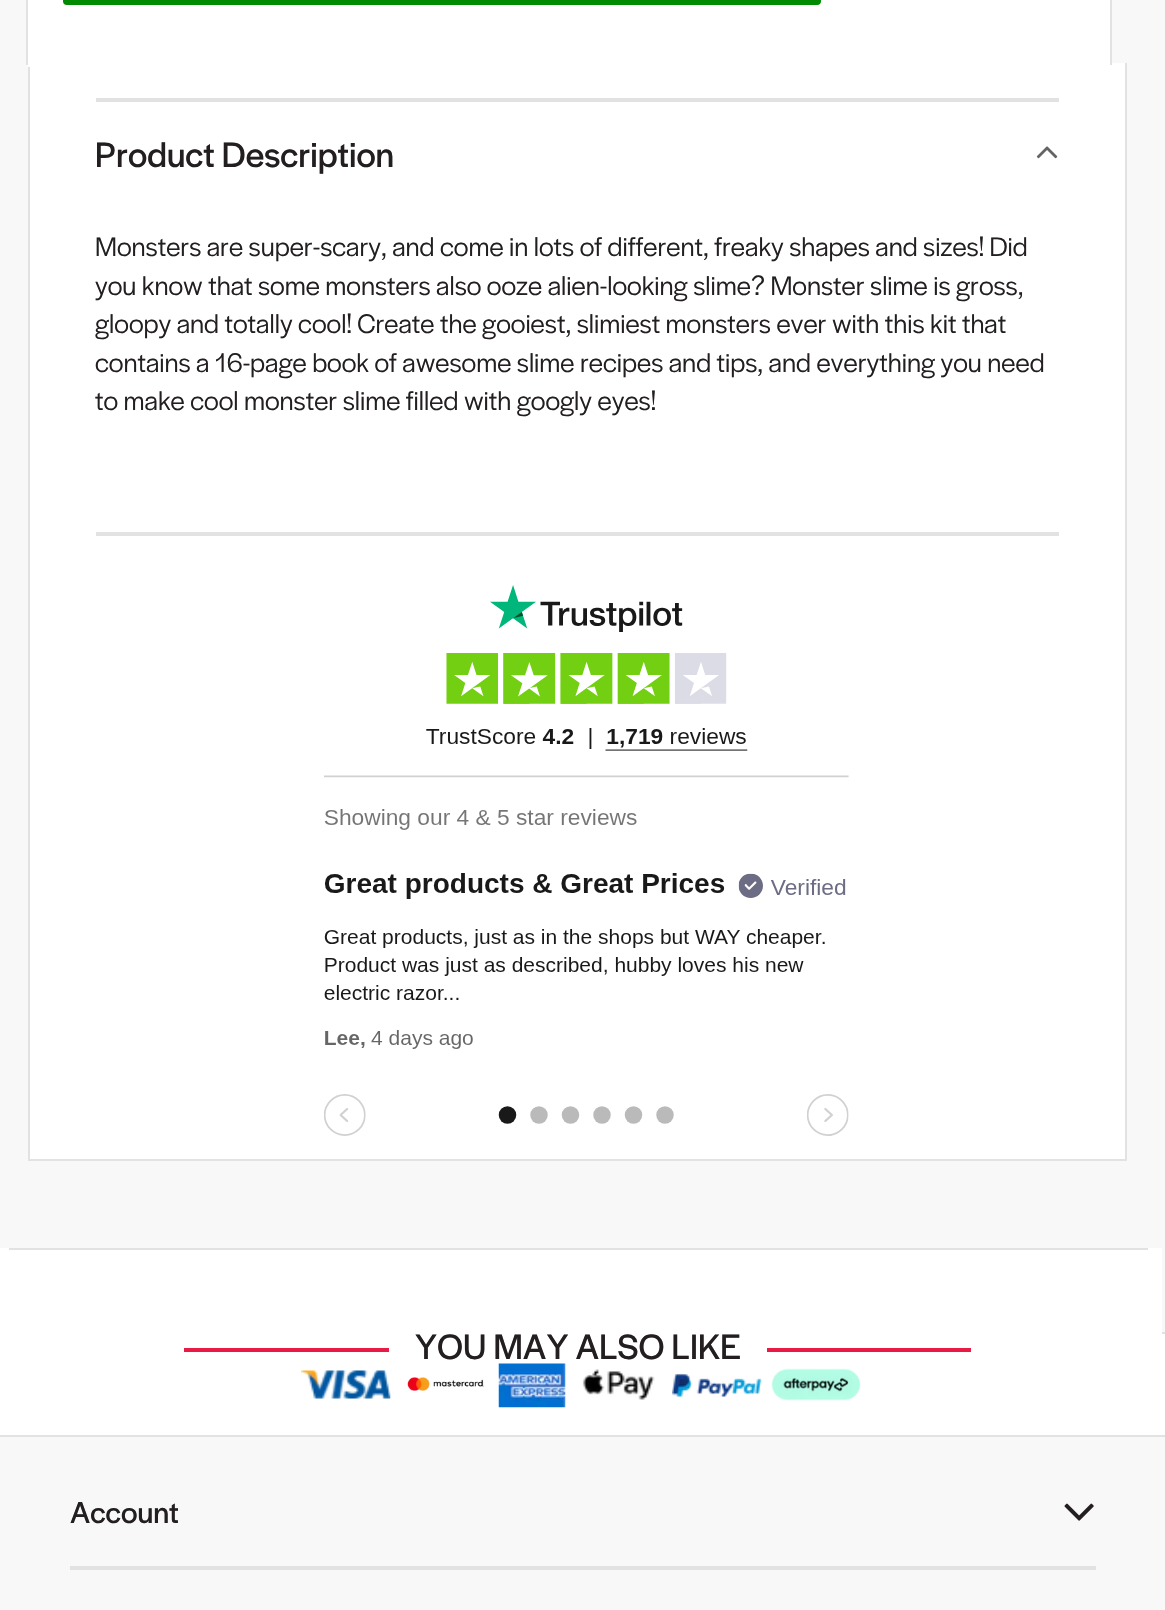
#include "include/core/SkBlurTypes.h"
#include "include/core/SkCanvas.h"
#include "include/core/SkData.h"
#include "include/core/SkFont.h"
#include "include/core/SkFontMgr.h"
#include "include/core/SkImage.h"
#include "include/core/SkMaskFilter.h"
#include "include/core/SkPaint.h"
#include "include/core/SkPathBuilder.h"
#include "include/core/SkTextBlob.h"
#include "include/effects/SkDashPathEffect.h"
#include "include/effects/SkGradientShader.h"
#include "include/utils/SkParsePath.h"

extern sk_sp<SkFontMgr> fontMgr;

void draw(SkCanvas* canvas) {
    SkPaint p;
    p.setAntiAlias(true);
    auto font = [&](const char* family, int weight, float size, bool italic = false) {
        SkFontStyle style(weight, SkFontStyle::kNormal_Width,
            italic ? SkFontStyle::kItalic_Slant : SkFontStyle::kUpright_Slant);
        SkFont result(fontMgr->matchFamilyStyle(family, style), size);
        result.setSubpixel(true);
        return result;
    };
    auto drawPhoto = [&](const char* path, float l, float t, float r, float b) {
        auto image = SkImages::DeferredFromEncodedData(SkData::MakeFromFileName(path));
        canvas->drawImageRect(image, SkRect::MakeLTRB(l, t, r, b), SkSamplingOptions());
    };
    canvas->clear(0xFFF8F8F8);
    {
        const struct { float l, t, r, b; SkColor color; } items[] = {
            {30, 63, 1125, 1159, 0xFFFFFFFF},
            {1125, 63, 1127, 1160, 0xFFE2E2E2},
            {28, 1159, 1127, 1161, 0xFFE2E2E2},
            {28, 63, 30, 1160, 0xFFE2E2E2},
        };
        for (auto [l, t, r, b, color] : items) {
            p.setColor(color);
            canvas->drawRect(SkRect::MakeLTRB(l, t, r, b), p);
        }
    }
    p.setColor(0xFFFFFFFF);
    canvas->drawRoundRect(SkRect::MakeLTRB(26, -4, 1111, 67), 4, 4, p);
    p.setColor(0xFFE2E2E2);
    canvas->drawRect(SkRect::MakeLTRB(1110, 0, 1112, 65), p);
    canvas->drawRect(SkRect::MakeLTRB(26, 0, 28, 65), p);
    p.setColor(0xFF008A01);
    canvas->drawRoundRect(SkRect::MakeLTRB(63, -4, 821, 5), 4, 4, p);
    p.setColor(0xFFE2E2E2);
    canvas->drawRect(SkRect::MakeLTRB(96, 98, 1059, 102), p);
    auto font1 = font("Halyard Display", 400, 36.75f);
    p.setColor(0xFF231F20);
    canvas->drawString("Product Description", 95, 167, font1, p);
    drawPhoto("media/1.png", 1036, 146, 1058, 159);
    p.setColor(0xFFE2E2E2);
    canvas->drawRect(SkRect::MakeLTRB(96, 532, 1059, 536), p);
    auto font2 = font("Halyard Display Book", 400, 28);
    p.setColor(0xFF231F20);
    {
        const struct { const char* s; float x, y; } items[] = {
            {"Monsters are super-scary, and come in lots of different, freaky shapes and sizes! Did", 95, 256},
            {"you know that some monsters also ooze alien-looking slime? Monster slime is gross,", 95, 295},
            {"gloopy and totally cool! Create the gooiest, slimiest monsters ever with this kit that", 95, 333},
            {"contains a 16-page book of awesome slime recipes and tips, and everything you need", 95, 372},
            {"to make cool monster slime filled with googly eyes!", 95, 410},
        };
        for (auto [s, x, y] : items) {
            canvas->drawString(s, x, y, font2, p);
        }
    }
    drawPhoto("media/2.png", 324, 585, 849, 1136);
    {
        const struct { float l, t, r, b; SkColor color; } items[] = {
            {0, 1248, 1162, 1334, 0xFFFFFFFF},
            {9, 1248, 1148, 1250, 0xFFE2E2E2},
            {0, 1334, 1165, 1435, 0xFFFFFFFF},
            {184, 1348, 389, 1352, 0xFFE81A46},
        };
        for (auto [l, t, r, b, color] : items) {
            p.setColor(color);
            canvas->drawRect(SkRect::MakeLTRB(l, t, r, b), p);
        }
    }
    p.setColor(0xFF231F20);
    canvas->drawString("YOU MAY ALSO LIKE", 415, 1359, font1, p);
    p.setColor(0xFFE81A46);
    canvas->drawRect(SkRect::MakeLTRB(767, 1348, 971, 1352), p);
    p.setColor(0xFFE2E2E2);
    canvas->drawRect(SkRect::MakeLTRB(1162, 1332, 1165, 1334), p);
    drawPhoto("media/3.png", 301, 1370, 391, 1399);
    drawPhoto("media/4.png", 407, 1377, 485, 1391);
    drawPhoto("media/5.png", 498, 1363, 566, 1408);
    drawPhoto("media/6.png", 582, 1369, 655, 1400);
    drawPhoto("media/7.png", 672, 1373, 762, 1397);
    drawPhoto("media/8.png", 771, 1368, 861, 1401);
    canvas->drawRect(SkRect::MakeLTRB(0, 1435, 1165, 1437), p);
    canvas->drawRect(SkRect::MakeLTRB(70, 1566, 1096, 1570), p);
    auto font3 = font("Halyard Display", 400, 31.5f);
    p.setColor(0xFF231F20);
    canvas->drawString("Account", 70, 1523, font3, p);
    drawPhoto("media/9.png", 1064, 1503, 1094, 1521);
}
